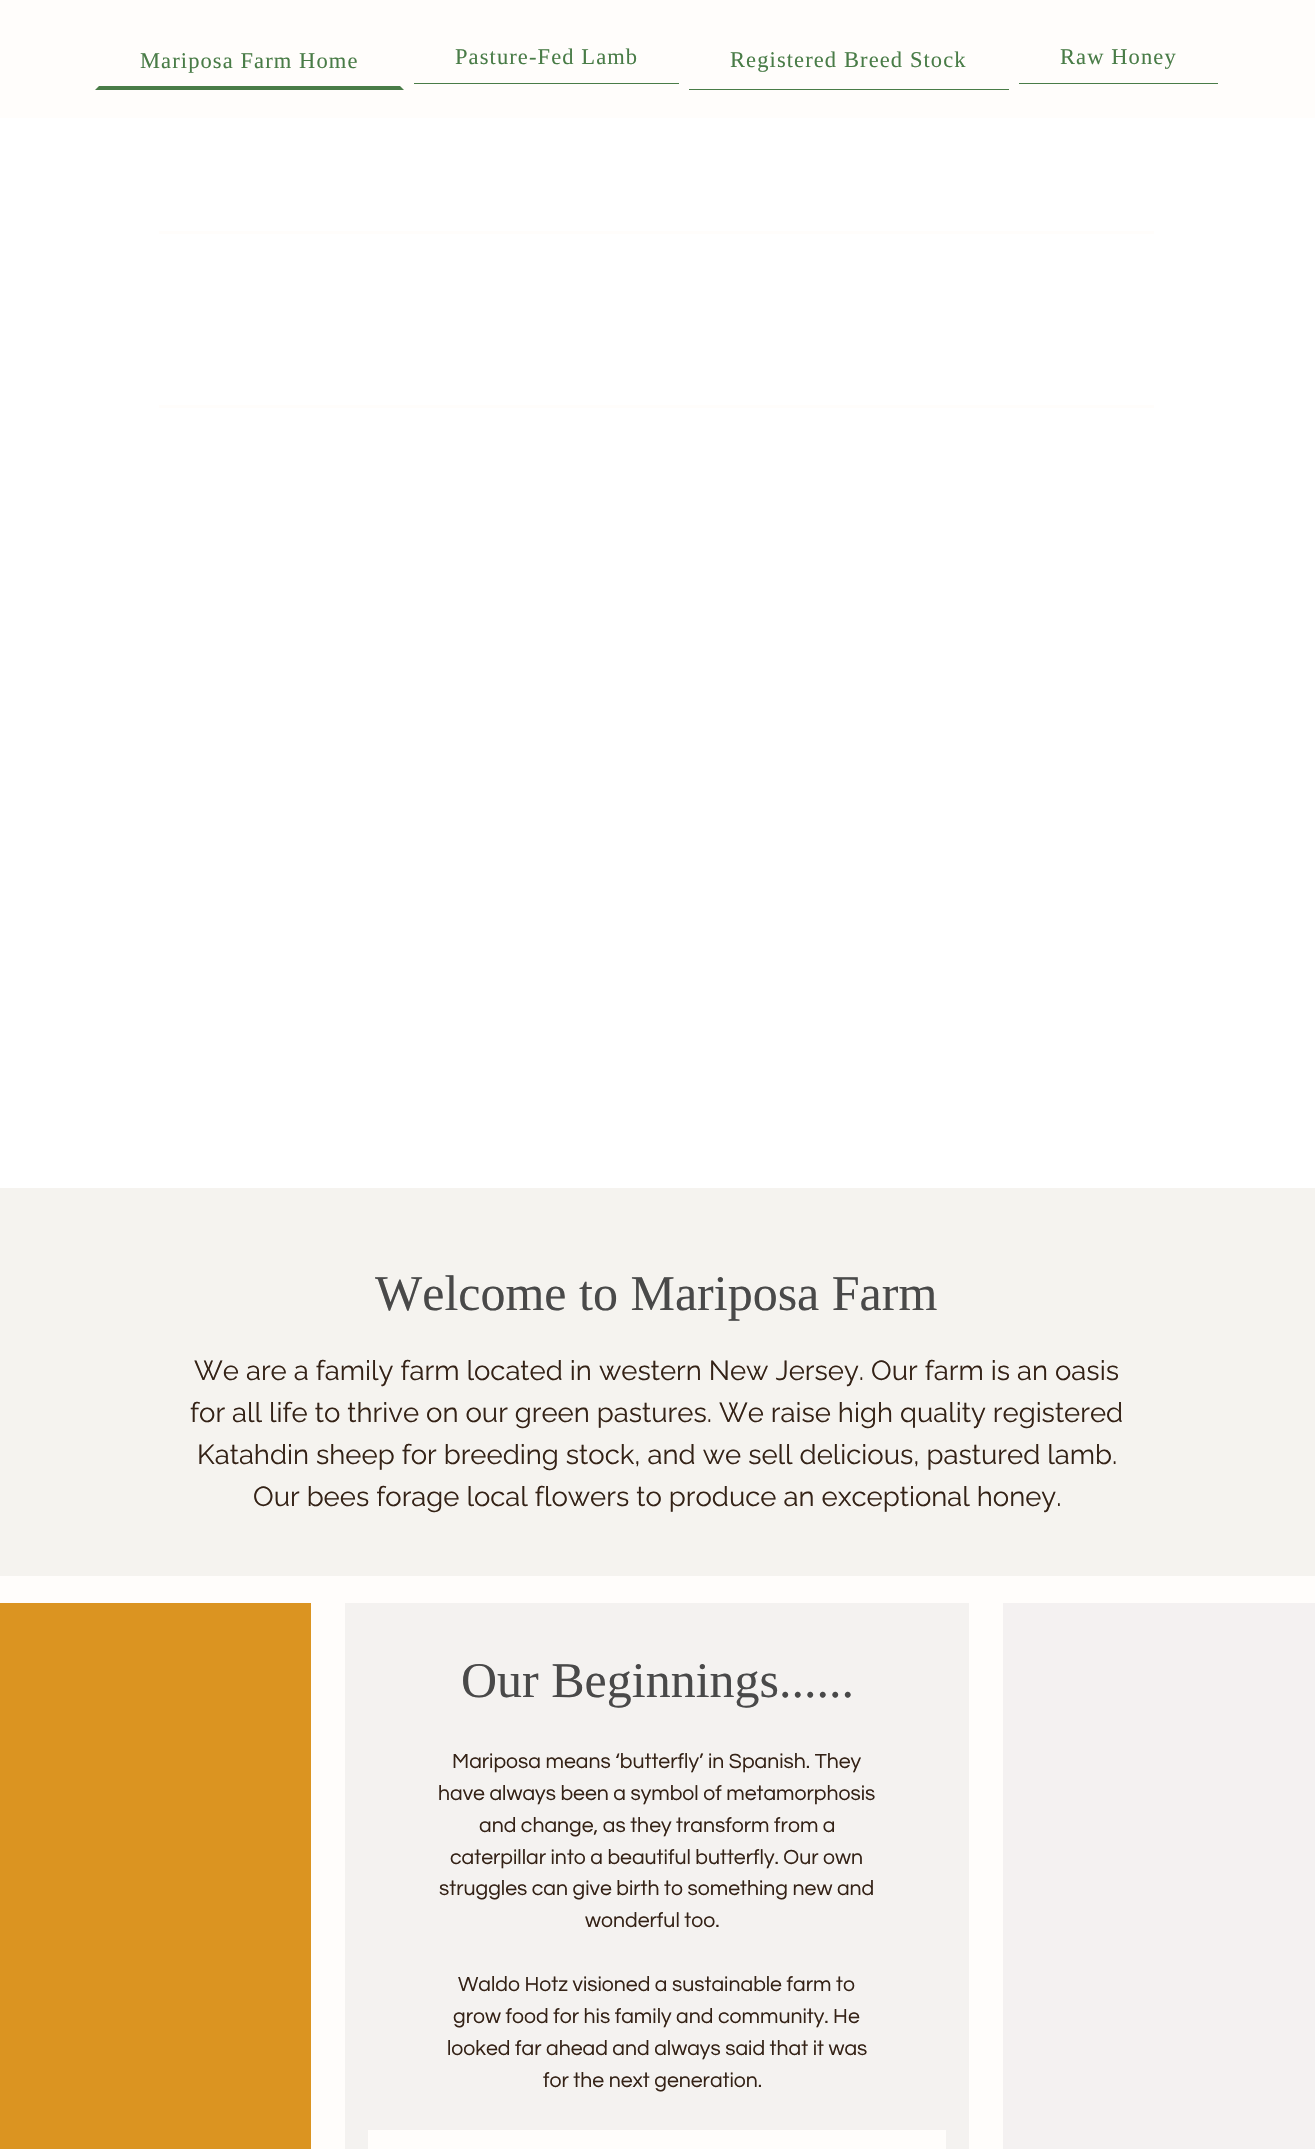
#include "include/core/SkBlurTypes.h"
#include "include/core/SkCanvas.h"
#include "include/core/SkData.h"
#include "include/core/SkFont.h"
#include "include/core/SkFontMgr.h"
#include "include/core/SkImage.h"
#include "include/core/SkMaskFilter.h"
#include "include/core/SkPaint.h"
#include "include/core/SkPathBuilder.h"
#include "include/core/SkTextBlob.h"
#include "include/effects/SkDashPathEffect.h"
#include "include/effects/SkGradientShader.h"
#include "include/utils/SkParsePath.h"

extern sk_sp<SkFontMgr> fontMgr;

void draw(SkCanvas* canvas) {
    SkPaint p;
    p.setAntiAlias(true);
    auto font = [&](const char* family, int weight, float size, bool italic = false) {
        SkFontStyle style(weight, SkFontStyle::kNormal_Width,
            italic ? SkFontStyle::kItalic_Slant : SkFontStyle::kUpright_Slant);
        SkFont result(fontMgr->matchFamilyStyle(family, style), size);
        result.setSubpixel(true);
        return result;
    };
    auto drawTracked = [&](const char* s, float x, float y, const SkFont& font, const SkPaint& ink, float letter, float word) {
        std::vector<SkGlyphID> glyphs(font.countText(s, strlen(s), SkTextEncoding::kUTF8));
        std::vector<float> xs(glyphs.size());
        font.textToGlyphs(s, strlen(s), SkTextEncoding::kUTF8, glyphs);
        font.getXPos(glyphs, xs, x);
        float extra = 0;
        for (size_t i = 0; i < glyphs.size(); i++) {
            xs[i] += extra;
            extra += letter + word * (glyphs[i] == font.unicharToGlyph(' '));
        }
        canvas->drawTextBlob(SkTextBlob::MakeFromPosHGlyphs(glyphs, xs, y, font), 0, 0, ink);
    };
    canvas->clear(0xFFFFFFFF);
    p.setColor(0xFFFFFDFB);
    canvas->drawRect(SkRect::MakeLTRB(0, 0, 1315, 118), p);
    p.setColor(0xFF497C47);
    canvas->drawPath(SkPathBuilder().moveTo(404, 90).lineTo(95, 90).lineTo(99, 86).lineTo(400, 86).close().detach(), p);
    auto font1 = font("Liberation Serif", 400, 22.5f);
    drawTracked("Mariposa Farm Home", 140, 68, font1, p, 1.1f, 0);
    canvas->drawRect(SkRect::MakeLTRB(414, 83, 679, 84), p);
    drawTracked("Pasture-Fed Lamb", 455, 64, font1, p, 1.1f, 0);
    canvas->drawRect(SkRect::MakeLTRB(689, 89, 1009, 90), p);
    drawTracked("Registered Breed Stock", 730, 67, font1, p, 1.1f, 0);
    canvas->drawRect(SkRect::MakeLTRB(1019, 83, 1218, 84), p);
    drawTracked("Raw Honey", 1060, 64, font1, p, 1.1f, 0);
    {
        const struct { float l, t, r, b; SkColor color; } items[] = {
            {159, 231, 1154, 234, 0xFFFFFDFB},
            {159, 405, 1154, 408, 0xFFFFFDFB},
            {0, 1188, 1315, 1576, 0xFFF5F3EF},
        };
        for (auto [l, t, r, b, color] : items) {
            p.setColor(color);
            canvas->drawRect(SkRect::MakeLTRB(l, t, r, b), p);
        }
    }
    auto font2 = font("Liberation Serif", 400, 50);
    p.setColor(0xFF494949);
    canvas->drawString("Welcome to Mariposa Farm", 375, 1310, font2, p);
    auto font3 = font("Raleway", 400, 27.5f);
    p.setColor(0xFF342216);
    {
        const struct { const char* s; float x, y; } items[] = {
            {"We are a family farm located in western New Jersey. Our farm is an oasis", 194, 1380},
            {"for all life to thrive on our green pastures. We raise high quality registered", 190, 1422},
            {"Katahdin sheep for breeding stock, and we sell delicious, pastured lamb.", 197, 1464},
            {"Our bees forage local flowers to produce an exceptional honey.", 253, 1506},
        };
        for (auto [s, x, y] : items) {
            canvas->drawString(s, x, y, font3, p);
        }
    }
    {
        const struct { float l, t, r, b; SkColor color; } items[] = {
            {0, 1576, 1315, 2149, 0xFFFFFDFB},
            {0, 1603, 311, 2149, 0xFFDB9421},
            {345, 1603, 969, 2149, 0xFFF4F2F0},
        };
        for (auto [l, t, r, b, color] : items) {
            p.setColor(color);
            canvas->drawRect(SkRect::MakeLTRB(l, t, r, b), p);
        }
    }
    p.setColor(0xFF494949);
    canvas->drawString("Our Beginnings......", 461, 1697, font2, p);
    auto font4 = font("Questrial", 400, 21.25f);
    p.setColor(0xFF342216);
    {
        const struct { const char* s; float x, y; } items[] = {
            {"Mariposa means ‘butterfly’ in Spanish. They", 452, 1768},
            {"have always been a symbol of metamorphosis", 438, 1800},
            {"and change, as they transform from a", 479, 1832},
            {"caterpillar into a beautiful butterfly. Our own", 450, 1864},
            {"struggles can give birth to something new and", 439, 1895},
            {"wonderful too.", 585, 1927},
            {"Waldo Hotz visioned a sustainable farm to", 458, 1991},
            {"grow food for his family and community. He", 453, 2023},
            {"looked far ahead and always said that it was", 447, 2055},
            {"for the next generation.", 543, 2087},
        };
        for (auto [s, x, y] : items) {
            canvas->drawString(s, x, y, font4, p);
        }
    }
    p.setColor(0xFFFFFDFB);
    canvas->drawRect(SkRect::MakeLTRB(368, 2130, 946, 2149), p);
    p.setColor(0xFFF4F1F1);
    canvas->drawRect(SkRect::MakeLTRB(1003, 1603, 1315, 2149), p);
}
